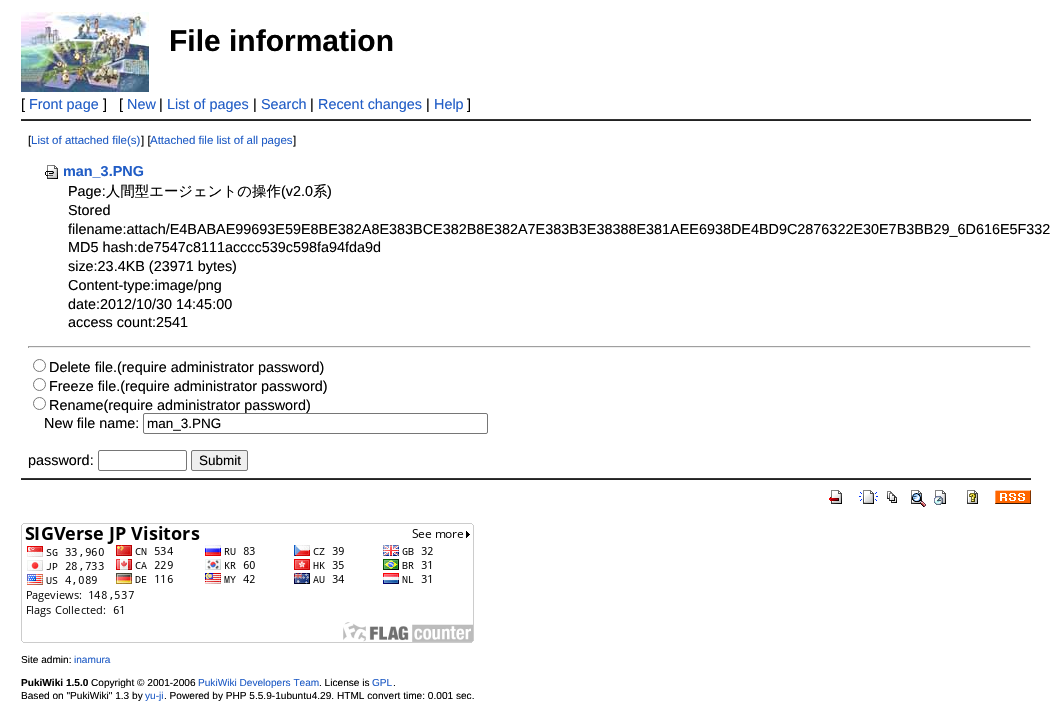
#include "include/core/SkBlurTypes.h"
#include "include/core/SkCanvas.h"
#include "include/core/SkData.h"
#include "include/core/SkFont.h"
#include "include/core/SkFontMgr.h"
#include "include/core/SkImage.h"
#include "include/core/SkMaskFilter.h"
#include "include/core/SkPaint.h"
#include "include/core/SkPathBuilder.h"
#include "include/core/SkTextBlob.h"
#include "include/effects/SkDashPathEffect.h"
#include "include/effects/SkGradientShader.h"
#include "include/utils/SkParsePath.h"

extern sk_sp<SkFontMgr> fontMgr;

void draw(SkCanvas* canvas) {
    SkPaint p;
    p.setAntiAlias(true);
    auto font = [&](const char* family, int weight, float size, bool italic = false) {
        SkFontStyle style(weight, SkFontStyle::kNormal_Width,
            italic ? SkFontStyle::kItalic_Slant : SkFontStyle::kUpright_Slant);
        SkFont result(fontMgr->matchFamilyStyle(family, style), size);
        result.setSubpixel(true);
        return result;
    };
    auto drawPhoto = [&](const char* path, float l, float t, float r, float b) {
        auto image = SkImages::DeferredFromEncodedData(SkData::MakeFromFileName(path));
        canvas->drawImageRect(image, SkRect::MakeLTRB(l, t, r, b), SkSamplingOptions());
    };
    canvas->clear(0xFFFFFFFF);
    drawPhoto("media/1.png", 21, 12, 149, 92);
    auto font1 = font("Liberation Sans", 700, 30);
    p.setColor(0xFF000000);
    canvas->drawString("File information", 169, 51, font1, p);
    auto font2 = font("Liberation Sans", 400, 14.4f);
    canvas->drawString("[", 21, 109, font2, p);
    p.setColor(0xFF215DC6);
    canvas->drawString("Front page", 29, 109, font2, p);
    p.setColor(0xFF000000);
    canvas->drawString("]", 103, 109, font2, p);
    canvas->drawString("[", 119, 109, font2, p);
    p.setColor(0xFF215DC6);
    canvas->drawString("New", 127, 109, font2, p);
    p.setColor(0xFF000000);
    canvas->drawString("|", 159, 109, font2, p);
    p.setColor(0xFF215DC6);
    canvas->drawString("List of pages", 167, 109, font2, p);
    p.setColor(0xFF000000);
    canvas->drawString("|", 253, 109, font2, p);
    p.setColor(0xFF215DC6);
    canvas->drawString("Search", 261, 109, font2, p);
    p.setColor(0xFF000000);
    canvas->drawString("|", 310, 109, font2, p);
    p.setColor(0xFF215DC6);
    canvas->drawString("Recent changes", 318, 109, font2, p);
    p.setColor(0xFF000000);
    canvas->drawString("|", 426, 109, font2, p);
    p.setColor(0xFF215DC6);
    canvas->drawString("Help", 434, 109, font2, p);
    p.setColor(0xFF000000);
    canvas->drawString("]", 467, 109, font2, p);
    p.setColor(0xFF333333);
    canvas->drawRect(SkRect::MakeLTRB(21, 119, 1031, 120), p);
    p.setColor(0xFF222222);
    canvas->drawRect(SkRect::MakeLTRB(21, 120, 1031, 121), p);
    auto font3 = font("Liberation Sans", 400, 11.5f);
    p.setColor(0xFF000000);
    canvas->drawString("[", 28, 144, font3, p);
    p.setColor(0xFF215DC6);
    canvas->drawString("List of attached file(s)", 31, 144, font3, p);
    p.setColor(0xFF000000);
    canvas->drawString("] [", 141, 144, font3, p);
    p.setColor(0xFF215DC6);
    canvas->drawString("Attached file list of all pages", 150, 144, font3, p);
    p.setColor(0xFF000000);
    canvas->drawString("]", 293, 144, font3, p);
    drawPhoto("media/2.png", 45, 165, 58, 179);
    auto font4 = font("Liberation Sans", 700, 14.4f);
    p.setColor(0xFF215DC6);
    canvas->drawString("man_3.PNG", 63, 176, font4, p);
    p.setColor(0xFF000000);
    canvas->drawString("Page:", 68, 196, font2, p);
    auto font5 = font("WenQuanYi Zen Hei", 500, 14.4f);
    canvas->drawString("人間型エージェントの操作", 106, 196, font5, p);
    canvas->drawString("(v2.0", 281, 196, font2, p);
    canvas->drawString("系", 313, 196, font5, p);
    {
        const struct { const char* s; float x, y; } items[] = {
            {")", 327, 196},
            {"Stored", 68, 215},
            {"filename:attach/E4BABAE99693E59E8BE382A8E383BCE382B8E382A7E383B3E38388E381AEE6938DE4BD9C2876322E30E7B3BB29_6D616E5F332", 68, 234},
            {"MD5 hash:de7547c8111acccc539c598fa94fda9d", 68, 252},
            {"size:23.4KB (23971 bytes)", 68, 271},
            {"Content-type:image/png", 68, 290},
            {"date:2012/10/30 14:45:00", 68, 309},
            {"access count:2541", 68, 327},
        };
        for (auto [s, x, y] : items) {
            canvas->drawString(s, x, y, font2, p);
        }
    }
    {
        const struct { float l, t, r, b; SkColor color; } items[] = {
            {28, 346, 1031, 347, 0xFF9F9F9F},
            {1030, 346, 1031, 348, 0xFFEEEEEE},
            {28, 347, 1031, 348, 0xFFEEEEEE},
            {28, 346, 29, 348, 0xFF9F9F9F},
        };
        for (auto [l, t, r, b, color] : items) {
            p.setColor(color);
            canvas->drawRect(SkRect::MakeLTRB(l, t, r, b), p);
        }
    }
    p.setStyle(SkPaint::kStroke_Style);
    p.setStrokeWidth(1);
    p.setColor(0xFF767676);
    canvas->drawCircle(39.5f, 365.5f, 6, p);
    p.setStyle(SkPaint::kFill_Style);
    p.setColor(0xFF000000);
    canvas->drawString("Delete file.(require administrator password)", 49, 372, font2, p);
    p.setStyle(SkPaint::kStroke_Style);
    p.setColor(0xFF767676);
    canvas->drawCircle(39.5f, 384.5f, 6, p);
    p.setStyle(SkPaint::kFill_Style);
    p.setColor(0xFF000000);
    canvas->drawString("Freeze file.(require administrator password)", 49, 391, font2, p);
    p.setStyle(SkPaint::kStroke_Style);
    p.setColor(0xFF767676);
    canvas->drawCircle(39.5f, 403.5f, 6, p);
    p.setStyle(SkPaint::kFill_Style);
    p.setColor(0xFF000000);
    canvas->drawString("Rename(require administrator password)", 49, 410, font2, p);
    canvas->drawString("New file name:", 44, 428, font2, p);
    p.setStyle(SkPaint::kStroke_Style);
    p.setColor(0xFF767676);
    canvas->drawRoundRect(SkRect::MakeLTRB(143.5f, 413.5f, 487.5f, 433.5f), 1.5f, 1.5f, p);
    auto font6 = font("Liberation Sans", 400, 13.5f);
    p.setStyle(SkPaint::kFill_Style);
    p.setColor(0xFF000000);
    canvas->drawString("man_3.PNG", 147, 428, font6, p);
    canvas->drawString("password:", 28, 465, font2, p);
    p.setStyle(SkPaint::kStroke_Style);
    p.setColor(0xFF767676);
    canvas->drawRoundRect(SkRect::MakeLTRB(98.5f, 450.5f, 186.5f, 470.5f), 1.5f, 1.5f, p);
    p.setStyle(SkPaint::kFill_Style);
    p.setColor(0xFFEFEFEF);
    canvas->drawRoundRect(SkRect::MakeLTRB(191.5f, 450.5f, 247.5f, 470.5f), 1.5f, 1.5f, p);
    p.setStyle(SkPaint::kStroke_Style);
    p.setColor(0xFF767676);
    canvas->drawRoundRect(SkRect::MakeLTRB(191.5f, 450.5f, 247.5f, 470.5f), 1.5f, 1.5f, p);
    p.setStyle(SkPaint::kFill_Style);
    p.setColor(0xFF000000);
    canvas->drawString("Submit", 199, 465, font6, p);
    p.setColor(0xFF333333);
    canvas->drawRect(SkRect::MakeLTRB(21, 478, 1031, 479), p);
    p.setColor(0xFF222222);
    canvas->drawRect(SkRect::MakeLTRB(21, 479, 1031, 480), p);
    drawPhoto("media/3.png", 829, 490, 842, 504);
    drawPhoto("media/4.png", 859, 490, 878, 504);
    drawPhoto("media/5.png", 887, 491, 897, 503);
    drawPhoto("media/6.png", 911, 490, 926, 507);
    drawPhoto("media/7.png", 934, 490, 946, 505);
    drawPhoto("media/8.png", 967, 490, 978, 504);
    drawPhoto("media/9.png", 995, 490, 1031, 504);
    drawPhoto("media/10.png", 21, 523, 474, 643);
    auto font7 = font("Liberation Sans", 400, 10.1f);
    p.setColor(0xFF000000);
    canvas->drawString("Site admin:", 21, 663, font7, p);
    p.setColor(0xFF215DC6);
    canvas->drawString("inamura", 74, 663, font7, p);
    auto font8 = font("Liberation Sans", 700, 10.1f);
    p.setColor(0xFF000000);
    canvas->drawString("PukiWiki 1.5.0", 21, 686, font8, p);
    canvas->drawString("Copyright © 2001-2006", 91, 686, font7, p);
    p.setColor(0xFF215DC6);
    canvas->drawString("PukiWiki Developers Team", 198, 686, font7, p);
    p.setColor(0xFF000000);
    canvas->drawString(". License is", 319, 686, font7, p);
    p.setColor(0xFF215DC6);
    canvas->drawString("GPL", 372, 686, font7, p);
    p.setColor(0xFF000000);
    canvas->drawString(".", 393, 686, font7, p);
    canvas->drawString("Based on \"PukiWiki\" 1.3 by", 21, 699, font7, p);
    p.setColor(0xFF215DC6);
    canvas->drawString("yu-ji", 145, 699, font7, p);
    p.setColor(0xFF000000);
    canvas->drawString(". Powered by PHP 5.5.9-1ubuntu4.29. HTML convert time: 0.001 sec.", 164, 699, font7, p);
}
